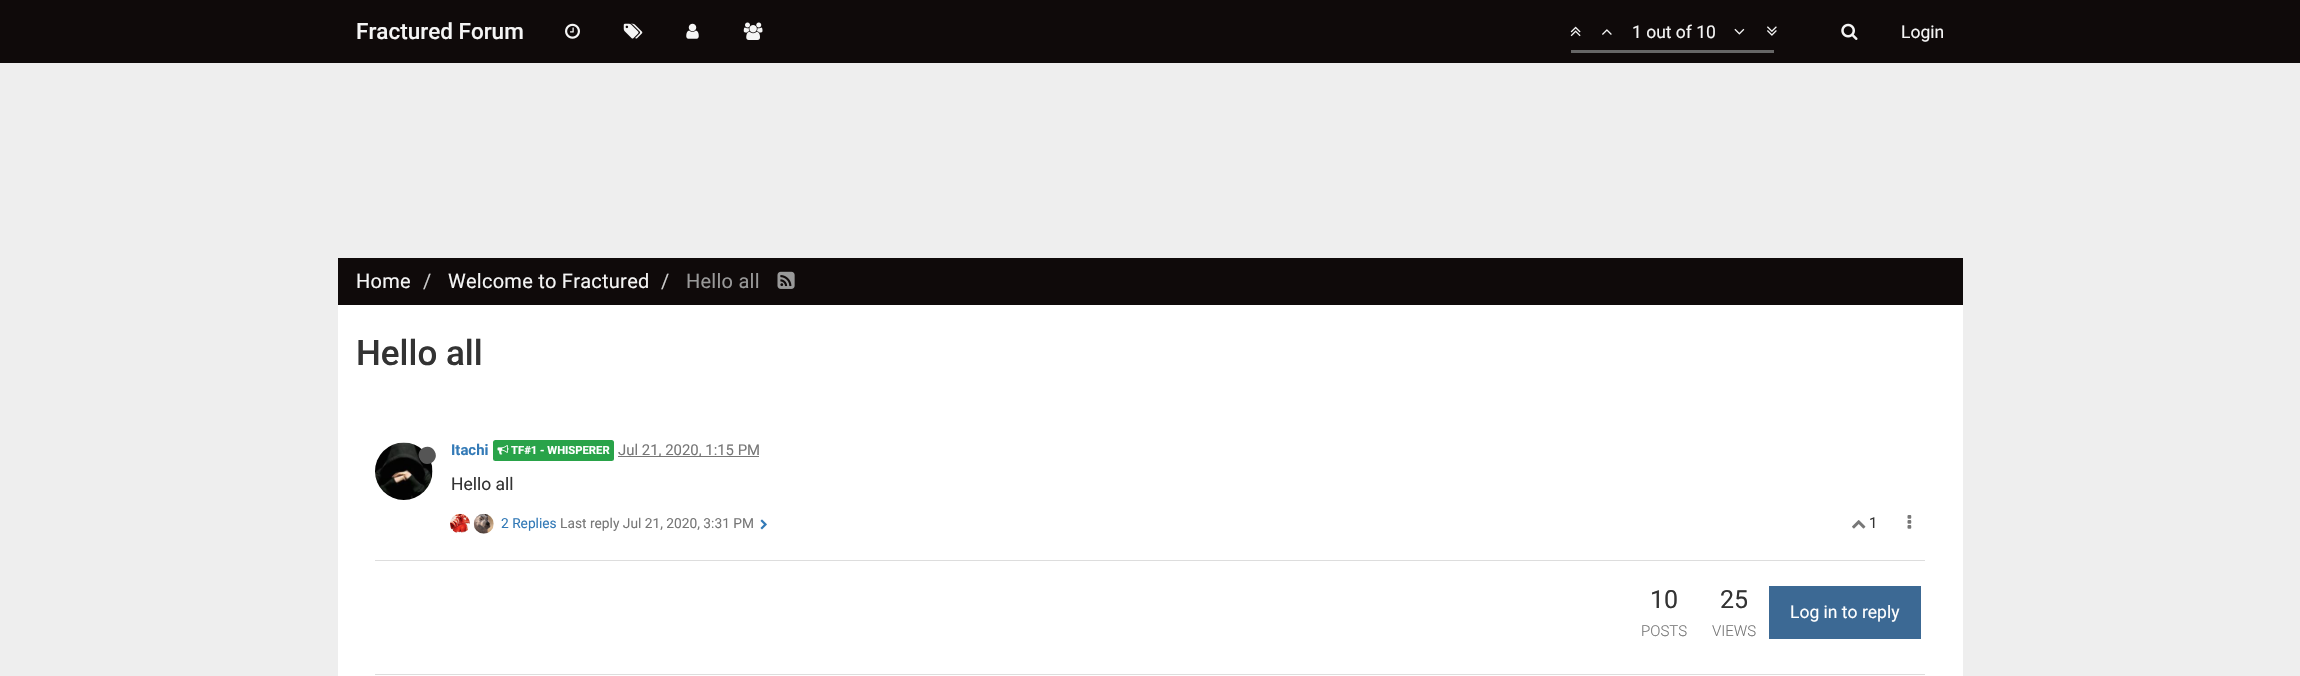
#include "include/core/SkBlurTypes.h"
#include "include/core/SkCanvas.h"
#include "include/core/SkData.h"
#include "include/core/SkFont.h"
#include "include/core/SkFontMgr.h"
#include "include/core/SkImage.h"
#include "include/core/SkMaskFilter.h"
#include "include/core/SkPaint.h"
#include "include/core/SkPathBuilder.h"
#include "include/core/SkTextBlob.h"
#include "include/effects/SkDashPathEffect.h"
#include "include/effects/SkGradientShader.h"
#include "include/utils/SkParsePath.h"

extern sk_sp<SkFontMgr> fontMgr;

void draw(SkCanvas* canvas) {
    SkPaint p;
    p.setAntiAlias(true);
    auto font = [&](const char* family, int weight, float size, bool italic = false) {
        SkFontStyle style(weight, SkFontStyle::kNormal_Width,
            italic ? SkFontStyle::kItalic_Slant : SkFontStyle::kUpright_Slant);
        SkFont result(fontMgr->matchFamilyStyle(family, style), size);
        result.setSubpixel(true);
        return result;
    };
    auto drawTracked = [&](const char* s, float x, float y, const SkFont& font, const SkPaint& ink, float letter, float word) {
        std::vector<SkGlyphID> glyphs(font.countText(s, strlen(s), SkTextEncoding::kUTF8));
        std::vector<float> xs(glyphs.size());
        font.textToGlyphs(s, strlen(s), SkTextEncoding::kUTF8, glyphs);
        font.getXPos(glyphs, xs, x);
        float extra = 0;
        for (size_t i = 0; i < glyphs.size(); i++) {
            xs[i] += extra;
            extra += letter + word * (glyphs[i] == font.unicharToGlyph(' '));
        }
        canvas->drawTextBlob(SkTextBlob::MakeFromPosHGlyphs(glyphs, xs, y, font), 0, 0, ink);
    };
    auto drawPhoto = [&](const char* path, float l, float t, float r, float b) {
        auto image = SkImages::DeferredFromEncodedData(SkData::MakeFromFileName(path));
        canvas->drawImageRect(image, SkRect::MakeLTRB(l, t, r, b), SkSamplingOptions());
    };
    canvas->clear(0xFFEEEEEE);
    p.setColor(0xFF0F0A0A);
    canvas->drawRect(SkRect::MakeLTRB(0, 0, 2300, 63), p);
    auto font1 = font("Roboto", 500, 22.5f);
    p.setColor(0xFFF5F5F5);
    canvas->drawString("Fractured Forum", 356, 39, font1, p);
    drawPhoto("media/1.png", 565, 23, 580, 39);
    drawPhoto("media/2.png", 623, 23, 643, 39);
    drawPhoto("media/3.png", 686, 23, 699, 39);
    drawPhoto("media/4.png", 743, 22, 763, 40);
    drawPhoto("media/5.png", 1570, 26, 1581, 37);
    drawPhoto("media/6.png", 1602, 29, 1612, 35);
    auto font2 = font("Roboto", 400, 17.5f);
    canvas->drawString("1 out of 10", 1632, 38, font2, p);
    drawPhoto("media/7.png", 1734, 28, 1745, 35);
    drawPhoto("media/8.png", 1767, 26, 1777, 36);
    p.setColor(0xFF666666);
    canvas->drawRect(SkRect::MakeLTRB(1571, 50, 1774, 53), p);
    drawPhoto("media/9.png", 1841, 23, 1858, 40);
    p.setColor(0xFFF5F5F5);
    canvas->drawString("Login", 1901, 38, font2, p);
    p.setColor(0xFF0F0A0A);
    canvas->drawRect(SkRect::MakeLTRB(338, 258, 1963, 305), p);
    auto font3 = font("Roboto", 400, 20);
    p.setColor(0xFFF5F5F5);
    drawTracked("Home", 356, 288, font3, p, 0.25f, 0);
    p.setColor(0xFFCCCCCC);
    drawTracked("/", 423, 288, font3, p, 0.25f, 0);
    p.setColor(0xFFF5F5F5);
    drawTracked("Welcome to Fractured", 448, 288, font3, p, 0.25f, 0);
    p.setColor(0xFFCCCCCC);
    drawTracked("/", 661, 288, font3, p, 0.25f, 0);
    p.setColor(0xFF999999);
    drawTracked("Hello all", 686, 288, font3, p, 0.25f, 0);
    drawPhoto("media/10.png", 777, 271, 795, 289);
    p.setColor(0xFFFFFFFF);
    canvas->drawRect(SkRect::MakeLTRB(338, 305, 1963, 676), p);
    auto font4 = font("Roboto", 500, 35);
    p.setColor(0xFF333333);
    canvas->drawString("Hello all", 356, 365, font4, p);
    drawPhoto("media/11.png", 375, 442, 433, 500);
    p.setColor(0xFF555555);
    canvas->drawPath(SkPathBuilder().moveTo(434.5f, 451).cubicTo(440.5f, 461, 425.5f, 469.5f, 420, 459.5f).cubicTo(414, 450, 429, 441.5f, 434.5f, 451).close().detach(), p);
    auto font5 = font("Roboto", 700, 14.9f);
    p.setColor(0xFF337AB7);
    canvas->drawString("Itachi", 451, 455, font5, p);
    p.setColor(0xFF29A349);
    canvas->drawRoundRect(SkRect::MakeLTRB(493, 440, 614, 461), 2.5f, 2.5f, p);
    drawPhoto("media/12.png", 497, 445, 509, 455);
    auto font6 = font("Roboto", 700, 11.25f);
    p.setColor(0xFFFFFFFF);
    canvas->drawString("TF#1 - WHISPERER", 511, 454, font6, p);
    p.setColor(0xFF777777);
    canvas->drawRect(SkRect::MakeLTRB(618, 456, 759, 457), p);
    auto font7 = font("Roboto", 400, 14.9f);
    canvas->drawString("Jul 21, 2020, 1:15 PM", 618, 455, font7, p);
    p.setColor(0xFF333333);
    canvas->drawString("Hello all", 451, 490, font2, p);
    drawPhoto("media/13.png", 450, 513, 470, 533);
    drawPhoto("media/14.png", 473, 513, 494, 534);
    auto font8 = font("Roboto", 400, 13.75f);
    p.setColor(0xFF337AB7);
    canvas->drawString("2 Replies", 501, 528, font8, p);
    p.setColor(0xFF777777);
    canvas->drawString("Last reply Jul 21, 2020, 3:31 PM", 560, 528, font8, p);
    drawPhoto("media/15.png", 760, 519, 767, 530);
    drawPhoto("media/16.png", 1852, 520, 1866, 529);
    p.setColor(0xFF333333);
    canvas->drawString("1", 1869, 528, font7, p);
    drawPhoto("media/17.png", 1907, 515, 1912, 529);
    p.setColor(0xFFDDDDDD);
    canvas->drawRect(SkRect::MakeLTRB(375, 560, 1925, 561), p);
    auto font9 = font("Roboto", 400, 25);
    p.setColor(0xFF333333);
    canvas->drawString("10", 1650, 608, font9, p);
    auto font10 = font("Roboto", 300, 15);
    p.setColor(0xFF777777);
    canvas->drawString("POSTS", 1641, 636, font10, p);
    p.setColor(0xFF333333);
    canvas->drawString("25", 1720, 608, font9, p);
    p.setColor(0xFF777777);
    canvas->drawString("VIEWS", 1712, 636, font10, p);
    p.setColor(0xFF3C6994);
    canvas->drawRect(SkRect::MakeLTRB(1769, 586, 1921, 639), p);
    p.setColor(0xFFFFFFFF);
    canvas->drawString("Log in to reply", 1790, 618, font2, p);
    p.setColor(0xFFDDDDDD);
    canvas->drawRect(SkRect::MakeLTRB(375, 674, 1925, 675), p);
}
